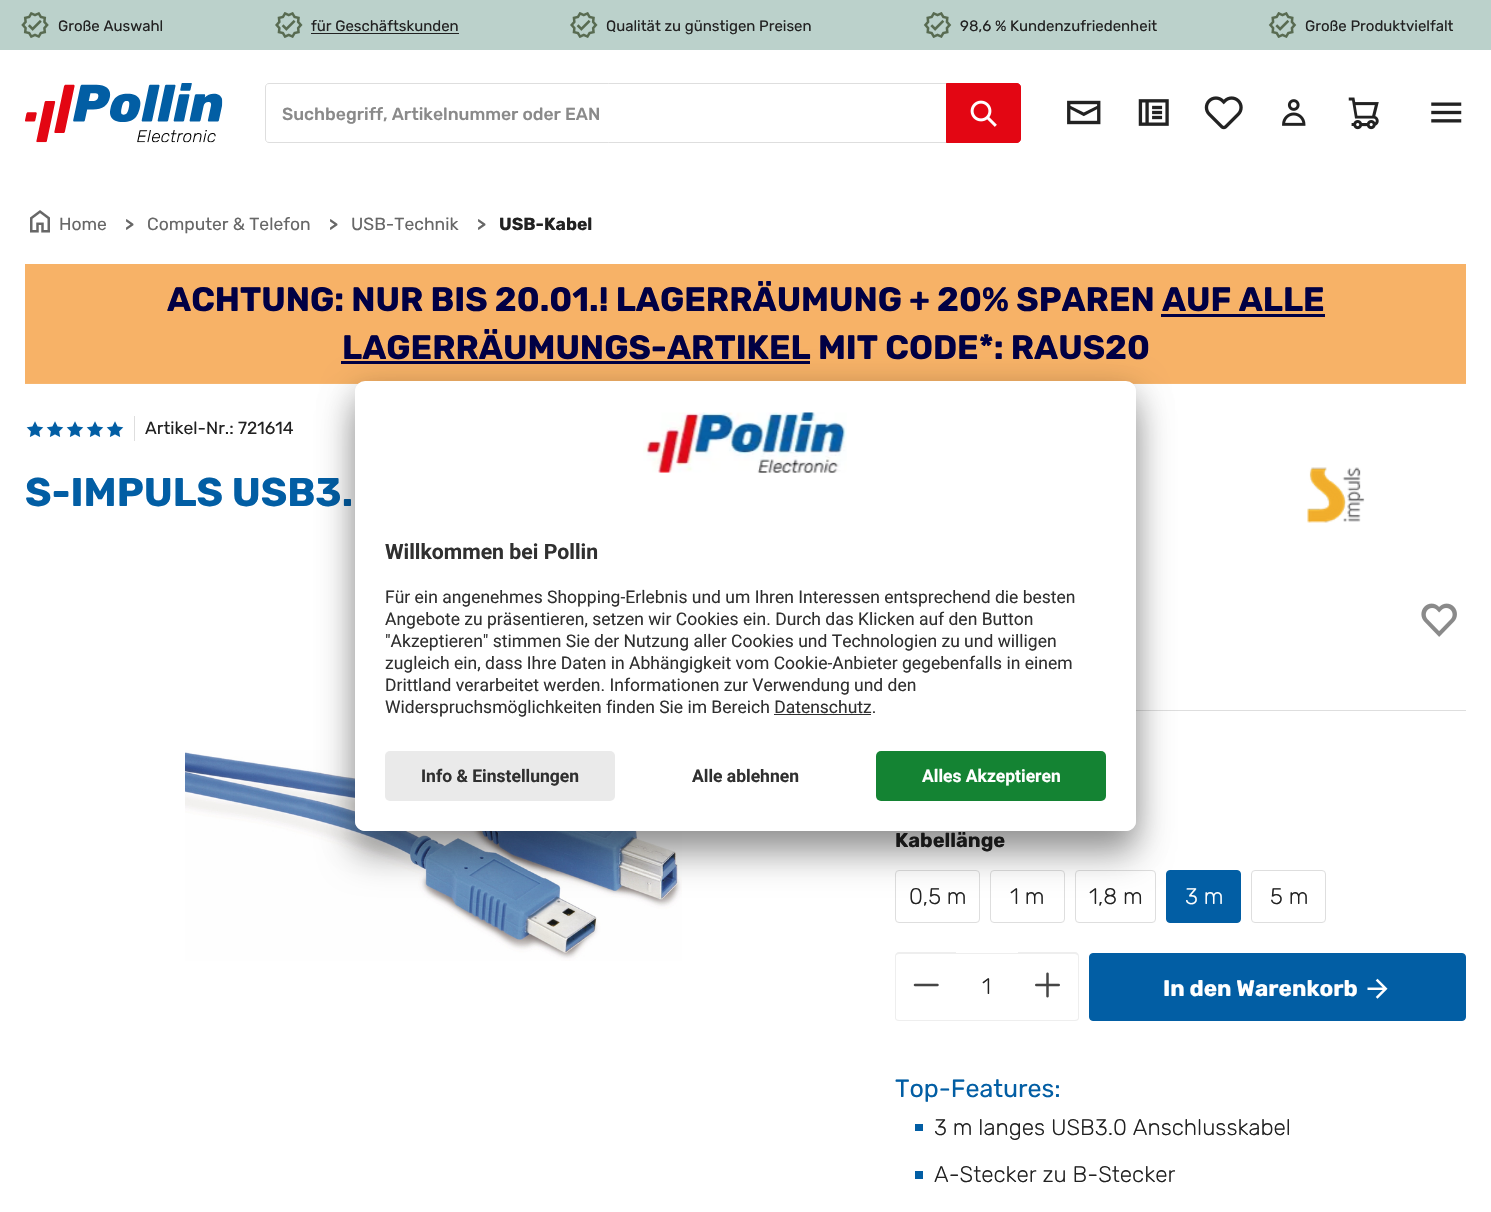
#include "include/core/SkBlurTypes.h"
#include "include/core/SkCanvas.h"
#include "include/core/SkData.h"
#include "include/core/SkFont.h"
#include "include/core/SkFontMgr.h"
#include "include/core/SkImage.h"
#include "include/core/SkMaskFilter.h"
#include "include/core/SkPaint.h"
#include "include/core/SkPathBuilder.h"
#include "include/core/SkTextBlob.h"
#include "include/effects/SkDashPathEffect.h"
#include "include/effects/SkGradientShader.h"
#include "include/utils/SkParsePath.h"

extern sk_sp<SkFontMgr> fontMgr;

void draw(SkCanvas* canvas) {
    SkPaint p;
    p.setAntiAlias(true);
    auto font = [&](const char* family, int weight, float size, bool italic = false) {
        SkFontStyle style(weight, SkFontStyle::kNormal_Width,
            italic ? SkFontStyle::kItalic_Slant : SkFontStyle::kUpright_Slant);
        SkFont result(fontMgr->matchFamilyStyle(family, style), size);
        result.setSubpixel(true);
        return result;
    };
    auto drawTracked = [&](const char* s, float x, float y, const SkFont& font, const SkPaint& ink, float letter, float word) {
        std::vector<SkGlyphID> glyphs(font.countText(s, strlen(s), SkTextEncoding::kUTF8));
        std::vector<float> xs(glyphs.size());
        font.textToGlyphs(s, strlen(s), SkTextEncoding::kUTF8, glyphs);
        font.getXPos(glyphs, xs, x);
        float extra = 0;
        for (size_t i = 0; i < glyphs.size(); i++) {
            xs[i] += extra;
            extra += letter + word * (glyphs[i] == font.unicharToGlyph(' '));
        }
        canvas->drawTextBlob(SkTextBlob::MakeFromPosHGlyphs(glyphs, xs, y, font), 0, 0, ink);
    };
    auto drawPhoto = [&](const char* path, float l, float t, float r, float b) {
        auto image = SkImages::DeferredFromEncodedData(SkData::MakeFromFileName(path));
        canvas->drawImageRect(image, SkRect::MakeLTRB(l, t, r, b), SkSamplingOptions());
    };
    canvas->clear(0xFFFFFFFF);
    p.setColor(0xFFBBD1CB);
    canvas->drawRect(SkRect::MakeLTRB(0, 0, 1491, 50), p);
    drawPhoto("media/1.png", 21, 12, 49, 38);
    auto font1 = font("Rubik", 400, 15);
    p.setColor(0xFF222222);
    canvas->drawString("Große Auswahl", 58, 31, font1, p);
    drawPhoto("media/2.png", 275, 12, 303, 38);
    canvas->drawString("für Geschäftskunden", 311, 31, font1, p);
    canvas->drawRect(SkRect::MakeLTRB(311, 33, 459, 34), p);
    drawPhoto("media/2.png", 570, 12, 598, 38);
    canvas->drawString("Qualität zu günstigen Preisen", 606, 31, font1, p);
    drawPhoto("media/3.png", 923, 12, 952, 38);
    canvas->drawString("98,6 % Kundenzufriedenheit", 960, 31, font1, p);
    drawPhoto("media/3.png", 1268, 12, 1297, 38);
    canvas->drawString("Große Produktvielfalt", 1305, 31, font1, p);
    drawPhoto("media/4.png", 25, 83, 223, 143);
    p.setStyle(SkPaint::kStroke_Style);
    p.setStrokeWidth(1);
    p.setColor(0xFFDEDEDE);
    canvas->drawPath(SkPathBuilder().moveTo(269, 83.5f).lineTo(947.5f, 83.5f).lineTo(947.5f, 142.5f).lineTo(269, 142.5f).cubicTo(267, 142.5f, 265.5f, 141, 265.5f, 139).lineTo(265.5f, 87).cubicTo(265.5f, 85, 267, 83.5f, 269, 83.5f).close().detach(), p);
    auto font2 = font("Rubik", 500, 17.5f);
    p.setStyle(SkPaint::kFill_Style);
    p.setColor(0xFF8A8A8A);
    canvas->drawString("Suchbegriff, Artikelnummer oder EAN", 282, 120, font2, p);
    p.setColor(0xFFE30613);
    canvas->drawPath(SkPathBuilder().moveTo(946.5f, 83.5f).lineTo(1017, 83.5f).cubicTo(1019, 83.5f, 1020.5f, 85, 1020.5f, 87).lineTo(1020.5f, 139).cubicTo(1020.5f, 141, 1019, 142.5f, 1017, 142.5f).lineTo(946.5f, 142.5f).close().detach(), p);
    p.setStyle(SkPaint::kStroke_Style);
    canvas->drawPath(SkPathBuilder().moveTo(946.5f, 83.5f).lineTo(1017, 83.5f).cubicTo(1019, 83.5f, 1020.5f, 85, 1020.5f, 87).lineTo(1020.5f, 139).cubicTo(1020.5f, 141, 1019, 142.5f, 1017, 142.5f).lineTo(946.5f, 142.5f).close().detach(), p);
    drawPhoto("media/5.png", 970, 100, 997, 127);
    drawPhoto("media/6.png", 1067, 100, 1101, 125);
    drawPhoto("media/7.png", 1138, 99, 1169, 126);
    drawPhoto("media/8.png", 1204, 96, 1243, 130);
    drawPhoto("media/9.png", 1282, 99, 1306, 126);
    drawPhoto("media/10.png", 1348, 97, 1379, 130);
    drawPhoto("media/11.png", 1431, 102, 1462, 123);
    drawPhoto("media/12.png", 30, 210, 50, 233);
    auto font3 = font("Rubik", 400, 17.5f);
    p.setStyle(SkPaint::kFill_Style);
    p.setColor(0xFF676767);
    canvas->drawString("Home", 59, 230, font3, p);
    auto font4 = font("Rubik", 600, 17.5f);
    drawTracked(">", 125, 230, font4, p, -3, 0);
    canvas->drawString("Computer & Telefon", 147, 230, font3, p);
    drawTracked(">", 329, 230, font4, p, -3, 0);
    canvas->drawString("USB-Technik", 351, 230, font3, p);
    drawTracked(">", 477, 230, font4, p, -3, 0);
    auto font5 = font("Rubik", 700, 17.5f);
    p.setColor(0xFF222222);
    canvas->drawString("USB-Kabel", 499, 230, font5, p);
    p.setColor(0xFFF7B267);
    canvas->drawRect(SkRect::MakeLTRB(25, 264, 1466, 383), p);
    auto font6 = font("Rubik", 700, 33.75f);
    p.setColor(0xFF010044);
    canvas->drawString("ACHTUNG: NUR BIS 20.01.! LAGERRÄUMUNG + 20% SPAREN AUF ALLE", 167, 311, font6, p);
    canvas->drawString("LAGERRÄUMUNGS-ARTIKEL MIT CODE*: RAUS20", 342, 359, font6, p);
    {
        const struct { float l, t, r, b; SkColor color; } items[] = {
            {1161, 314, 1325, 317, 0xFF010044},
            {341, 361, 810, 364, 0xFF010044},
            {25, 383, 1466, 384, 0xFFF7B770},
        };
        for (auto [l, t, r, b, color] : items) {
            p.setColor(color);
            canvas->drawRect(SkRect::MakeLTRB(l, t, r, b), p);
        }
    }
    drawPhoto("media/13.png", 26, 421, 44, 437);
    drawPhoto("media/13.png", 46, 421, 64, 437);
    drawPhoto("media/13.png", 66, 421, 84, 437);
    drawPhoto("media/13.png", 86, 421, 104, 437);
    drawPhoto("media/13.png", 106, 421, 124, 437);
    p.setColor(0xFFDEDEDE);
    canvas->drawRect(SkRect::MakeLTRB(134, 416, 135, 441), p);
    p.setColor(0xFF222222);
    canvas->drawString("Artikel-Nr.: 721614", 145, 434, font3, p);
    auto font7 = font("Rubik", 700, 40);
    p.setColor(0xFF025EA4);
    canvas->drawString("S-IMPULS USB3.", 25, 506, font7, p);
    drawPhoto("media/14.png", 1307, 467, 1365, 523);
    drawPhoto("media/15.png", 185, 750, 682, 961);
    drawPhoto("media/16.png", 1421, 603, 1457, 637);
    p.setColor(0xFFDEDEDE);
    canvas->drawRect(SkRect::MakeLTRB(1136, 710, 1466, 711), p);
    auto font8 = font("Rubik", 700, 20);
    p.setColor(0xFF222222);
    canvas->drawString("Kabellänge", 895, 847, font8, p);
    p.setStyle(SkPaint::kStroke_Style);
    p.setColor(0xFFDEDEDE);
    canvas->drawRoundRect(SkRect::MakeLTRB(895.5f, 870.5f, 979.5f, 922.5f), 3.5f, 3.5f, p);
    auto font9 = font("Rubik", 300, 22.5f);
    p.setStyle(SkPaint::kFill_Style);
    p.setColor(0xFF222222);
    canvas->drawString("0,5 m", 909, 904, font9, p);
    p.setStyle(SkPaint::kStroke_Style);
    p.setColor(0xFFDEDEDE);
    canvas->drawRoundRect(SkRect::MakeLTRB(990.5f, 870.5f, 1064.5f, 922.5f), 3.5f, 3.5f, p);
    p.setStyle(SkPaint::kFill_Style);
    p.setColor(0xFF222222);
    canvas->drawString("1 m", 1010, 904, font9, p);
    p.setStyle(SkPaint::kStroke_Style);
    p.setColor(0xFFDEDEDE);
    canvas->drawRoundRect(SkRect::MakeLTRB(1075.5f, 870.5f, 1155.5f, 922.5f), 3.5f, 3.5f, p);
    p.setStyle(SkPaint::kFill_Style);
    p.setColor(0xFF222222);
    canvas->drawString("1,8 m", 1089, 904, font9, p);
    p.setColor(0xFF025EA4);
    canvas->drawRoundRect(SkRect::MakeLTRB(1166.5f, 870.5f, 1240.5f, 922.5f), 3.5f, 3.5f, p);
    p.setStyle(SkPaint::kStroke_Style);
    canvas->drawRoundRect(SkRect::MakeLTRB(1166.5f, 870.5f, 1240.5f, 922.5f), 3.5f, 3.5f, p);
    p.setStyle(SkPaint::kFill_Style);
    p.setColor(0xFFFFFFFF);
    canvas->drawString("3 m", 1185, 904, font9, p);
    p.setStyle(SkPaint::kStroke_Style);
    p.setColor(0xFFDEDEDE);
    canvas->drawRoundRect(SkRect::MakeLTRB(1251.5f, 870.5f, 1325.5f, 922.5f), 3.5f, 3.5f, p);
    p.setStyle(SkPaint::kFill_Style);
    p.setColor(0xFF222222);
    canvas->drawString("5 m", 1270, 904, font9, p);
    p.setColor(0xFFEEEEEE);
    canvas->drawRect(SkRect::MakeLTRB(955, 953, 1019, 954), p);
    canvas->drawRect(SkRect::MakeLTRB(955, 1020, 1019, 1021), p);
    p.setColor(0xFFFFFFFF);
    canvas->drawPath(SkPathBuilder().moveTo(899, 953).lineTo(956, 953).lineTo(956, 1021).lineTo(899, 1021).cubicTo(897, 1021, 895, 1019, 895, 1017).lineTo(895, 957).cubicTo(895, 955, 897, 953, 899, 953).close().detach(), p);
    p.setColor(0xFFEEEEEE);
    canvas->drawPath(SkPathBuilder(SkPathFillType::kEvenOdd).moveTo(899, 952).lineTo(956, 952).lineTo(956, 1021).lineTo(899, 1021).cubicTo(897, 1021, 895, 1020, 895, 1018).lineTo(895, 956).cubicTo(895, 954, 897, 952, 899, 952).close().moveTo(899, 954).lineTo(956, 954).lineTo(956, 1020).lineTo(899, 1020).cubicTo(897, 1020, 896, 1019, 896, 1018).lineTo(896, 956).cubicTo(896, 955, 897, 954, 899, 954).close().detach(), p);
    drawPhoto("media/17.png", 913, 983, 939, 987);
    p.setColor(0xFF222222);
    canvas->drawString("1", 982, 994, font9, p);
    p.setColor(0xFFFFFFFF);
    canvas->drawPath(SkPathBuilder().moveTo(1018, 953).lineTo(1075, 953).cubicTo(1077, 953, 1079, 955, 1079, 957).lineTo(1079, 1017).cubicTo(1079, 1019, 1077, 1021, 1075, 1021).lineTo(1018, 1021).close().detach(), p);
    p.setColor(0xFFEEEEEE);
    canvas->drawPath(SkPathBuilder(SkPathFillType::kEvenOdd).moveTo(1018, 952).lineTo(1075, 952).cubicTo(1077, 952, 1079, 954, 1079, 956).lineTo(1079, 1018).cubicTo(1079, 1020, 1077, 1021, 1075, 1021).lineTo(1018, 1021).close().moveTo(1018, 954).lineTo(1075, 954).cubicTo(1076, 954, 1078, 955, 1078, 956).lineTo(1078, 1018).cubicTo(1078, 1019, 1076, 1020, 1075, 1020).lineTo(1018, 1020).close().detach(), p);
    drawPhoto("media/18.png", 1035, 972, 1060, 998);
    p.setColor(0xFF025EA4);
    canvas->drawRoundRect(SkRect::MakeLTRB(1089.5f, 953.5f, 1465.5f, 1020.5f), 3.5f, 3.5f, p);
    p.setStyle(SkPaint::kStroke_Style);
    canvas->drawRoundRect(SkRect::MakeLTRB(1089.5f, 953.5f, 1465.5f, 1020.5f), 3.5f, 3.5f, p);
    auto font10 = font("Rubik", 700, 22.5f);
    p.setStyle(SkPaint::kFill_Style);
    p.setColor(0xFFFFFFFF);
    canvas->drawString("In den Warenkorb", 1163, 996, font10, p);
    drawPhoto("media/19.png", 1367, 978, 1388, 999);
    auto font11 = font("Rubik", 400, 25);
    p.setColor(0xFF025EA4);
    canvas->drawString("Top-Features:", 895, 1097, font11, p);
    canvas->drawRect(SkRect::MakeLTRB(915, 1124, 923, 1131), p);
    p.setColor(0xFF222222);
    canvas->drawString("3 m langes USB3.0 Anschlusskabel", 934, 1135, font9, p);
    p.setColor(0xFF025EA4);
    canvas->drawRect(SkRect::MakeLTRB(915, 1171, 923, 1179), p);
    p.setColor(0xFF222222);
    canvas->drawString("A-Stecker zu B-Stecker", 934, 1182, font9, p);
    p.setColor(0x4D000000);
    p.setMaskFilter(SkMaskFilter::MakeBlur(kNormal_SkBlurStyle, 17.5f));
    canvas->drawRoundRect(SkRect::MakeLTRB(355, 406, 1136, 856), 10, 10, p);
    p.setMaskFilter(nullptr);
    p.setColor(0x38000000);
    p.setMaskFilter(SkMaskFilter::MakeBlur(kNormal_SkBlurStyle, 16));
    canvas->drawRoundRect(SkRect::MakeLTRB(355, 388, 1136, 838), 10, 10, p);
    p.setMaskFilter(nullptr);
    p.setColor(0xFFFFFFFF);
    canvas->drawRoundRect(SkRect::MakeLTRB(355, 381, 1136, 831), 10, 10, p);
    canvas->save();
    canvas->clipPath(SkPathBuilder().moveTo(365, 381).lineTo(1126, 381).cubicTo(1131.5f, 381, 1136, 385.5f, 1136, 391).lineTo(1136, 821).cubicTo(1136, 826.5f, 1131.5f, 831, 1126, 831).lineTo(365, 831).cubicTo(359.5f, 831, 355, 826.5f, 355, 821).lineTo(355, 391).cubicTo(355, 385.5f, 359.5f, 381, 365, 381).close().detach(), true);
    canvas->clipPath(SkPathBuilder().moveTo(365, 381).lineTo(1126, 381).cubicTo(1131.5f, 381, 1136, 385.5f, 1136, 391).lineTo(1136, 741).lineTo(355, 741).lineTo(355, 391).cubicTo(355, 385.5f, 359.5f, 381, 365, 381).close().detach(), true);
    canvas->drawRect(SkRect::MakeLTRB(355, 383, 1136, 741), p);
    canvas->restore();
    drawPhoto("media/20.png", 643, 412, 847, 473);
    auto font12 = font("Roboto", 700, 21.25f);
    p.setColor(0xFF303030);
    canvas->drawString("Willkommen bei Pollin", 385, 559, font12, p);
    auto font13 = font("Roboto", 400, 17.5f);
    {
        const struct { const char* s; float x, y; } items[] = {
            {"Für ein angenehmes Shopping-Erlebnis und um Ihren Interessen entsprechend die besten", 385, 603},
            {"Angebote zu präsentieren, setzen wir Cookies ein. Durch das Klicken auf den Button", 385, 625},
            {"\"Akzeptieren\" stimmen Sie der Nutzung aller Cookies und Technologien zu und willigen", 385, 647},
            {"zugleich ein, dass Ihre Daten in Abhängigkeit vom Cookie-Anbieter gegebenfalls in einem", 385, 669},
            {"Drittland verarbeitet werden. Informationen zur Verwendung und den", 385, 691},
            {"Widerspruchsmöglichkeiten finden Sie im Bereich Datenschutz.", 385, 713},
        };
        for (auto [s, x, y] : items) {
            canvas->drawString(s, x, y, font13, p);
        }
    }
    canvas->drawRect(SkRect::MakeLTRB(774, 714, 871, 715), p);
    p.setColor(0xFFFFFFFF);
    canvas->drawPath(SkPathBuilder().moveTo(355, 741).lineTo(1136, 741).lineTo(1136, 821).cubicTo(1136, 826.5f, 1131.5f, 831, 1126, 831).lineTo(365, 831).cubicTo(359.5f, 831, 355, 826.5f, 355, 821).close().detach(), p);
    p.setColor(0xFFEAEAEA);
    canvas->drawRoundRect(SkRect::MakeLTRB(385, 751, 615, 801), 5, 5, p);
    auto font14 = font("Roboto", 700, 17.5f);
    p.setColor(0xFF303030);
    canvas->drawString("Info & Einstellungen", 421, 782, font14, p);
    canvas->drawString("Alle ablehnen", 692, 782, font14, p);
    p.setColor(0xFF148333);
    canvas->drawRoundRect(SkRect::MakeLTRB(876, 751, 1106, 801), 5, 5, p);
    p.setColor(0xFFFFFFFF);
    canvas->drawString("Alles Akzeptieren", 922, 782, font14, p);
}
